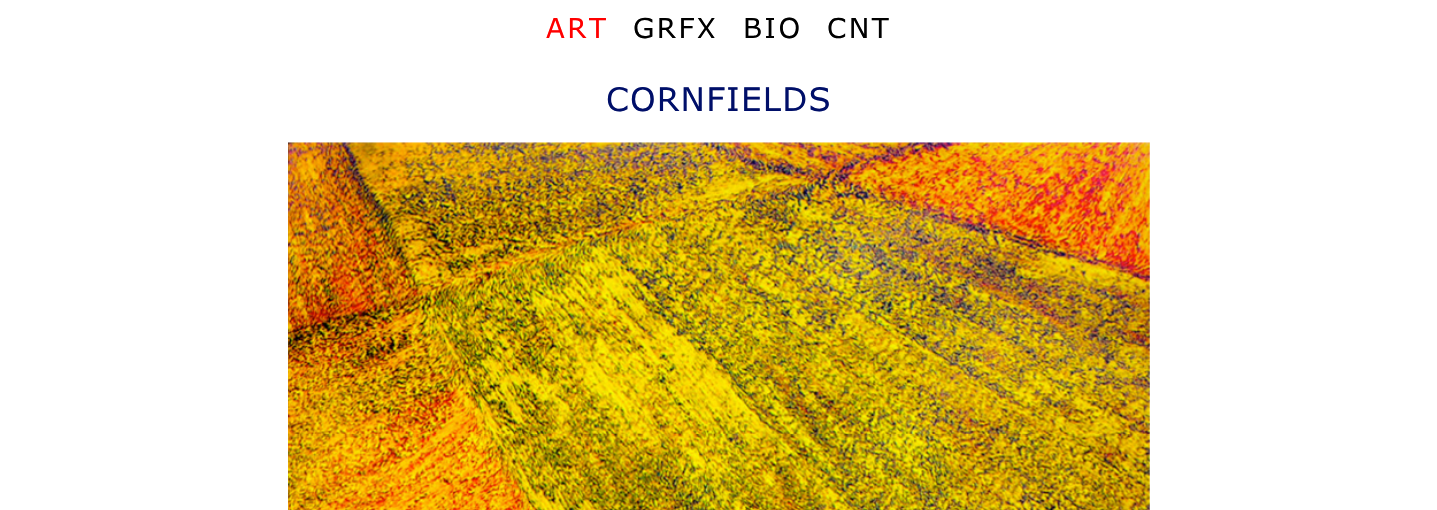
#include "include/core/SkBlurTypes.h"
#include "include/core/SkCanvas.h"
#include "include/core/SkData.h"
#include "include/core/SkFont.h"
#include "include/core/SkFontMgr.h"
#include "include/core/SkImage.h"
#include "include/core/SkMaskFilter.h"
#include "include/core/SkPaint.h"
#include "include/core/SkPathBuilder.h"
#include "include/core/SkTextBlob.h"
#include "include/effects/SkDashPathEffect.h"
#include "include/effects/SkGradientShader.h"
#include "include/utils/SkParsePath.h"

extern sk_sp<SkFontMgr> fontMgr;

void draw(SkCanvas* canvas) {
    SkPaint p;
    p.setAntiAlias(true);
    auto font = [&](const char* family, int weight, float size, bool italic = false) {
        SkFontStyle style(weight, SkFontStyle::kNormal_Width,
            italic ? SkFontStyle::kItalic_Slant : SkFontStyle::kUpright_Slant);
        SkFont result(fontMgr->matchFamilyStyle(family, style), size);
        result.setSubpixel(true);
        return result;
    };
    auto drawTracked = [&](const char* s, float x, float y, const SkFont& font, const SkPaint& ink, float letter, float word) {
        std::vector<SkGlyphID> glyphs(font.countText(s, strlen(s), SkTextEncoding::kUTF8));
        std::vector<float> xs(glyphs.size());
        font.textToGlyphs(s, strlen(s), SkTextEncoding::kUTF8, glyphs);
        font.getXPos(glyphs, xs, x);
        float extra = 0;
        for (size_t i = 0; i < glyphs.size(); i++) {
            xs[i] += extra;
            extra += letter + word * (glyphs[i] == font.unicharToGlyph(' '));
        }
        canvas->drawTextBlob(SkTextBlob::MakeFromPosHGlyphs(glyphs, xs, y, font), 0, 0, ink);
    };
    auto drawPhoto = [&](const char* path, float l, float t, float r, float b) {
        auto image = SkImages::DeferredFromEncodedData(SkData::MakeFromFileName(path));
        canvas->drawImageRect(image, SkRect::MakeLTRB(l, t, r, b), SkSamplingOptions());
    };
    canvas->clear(0xFFFFFFFF);
    auto font1 = font("Verdana", 400, 27.5f);
    p.setColor(0xFFFF0000);
    drawTracked("ART", 546, 38, font1, p, 2.5f, 0);
    p.setColor(0xFF000000);
    {
        const struct { const char* s; float x, y; } items[] = {
            {"GRFX", 633, 38},
            {"BIO", 743, 38},
            {"CNT", 827, 38},
        };
        for (auto [s, x, y] : items) {
            drawTracked(s, x, y, font1, p, 2.5f, 0);
        }
    }
    auto font2 = font("Verdana", 400, 32.5f);
    p.setColor(0xFF000F69);
    drawTracked("CORNFIELDS", 606, 111, font2, p, 1.25f, 0);
    drawPhoto("media/1.png", 288, 142, 1150, 510);
}
